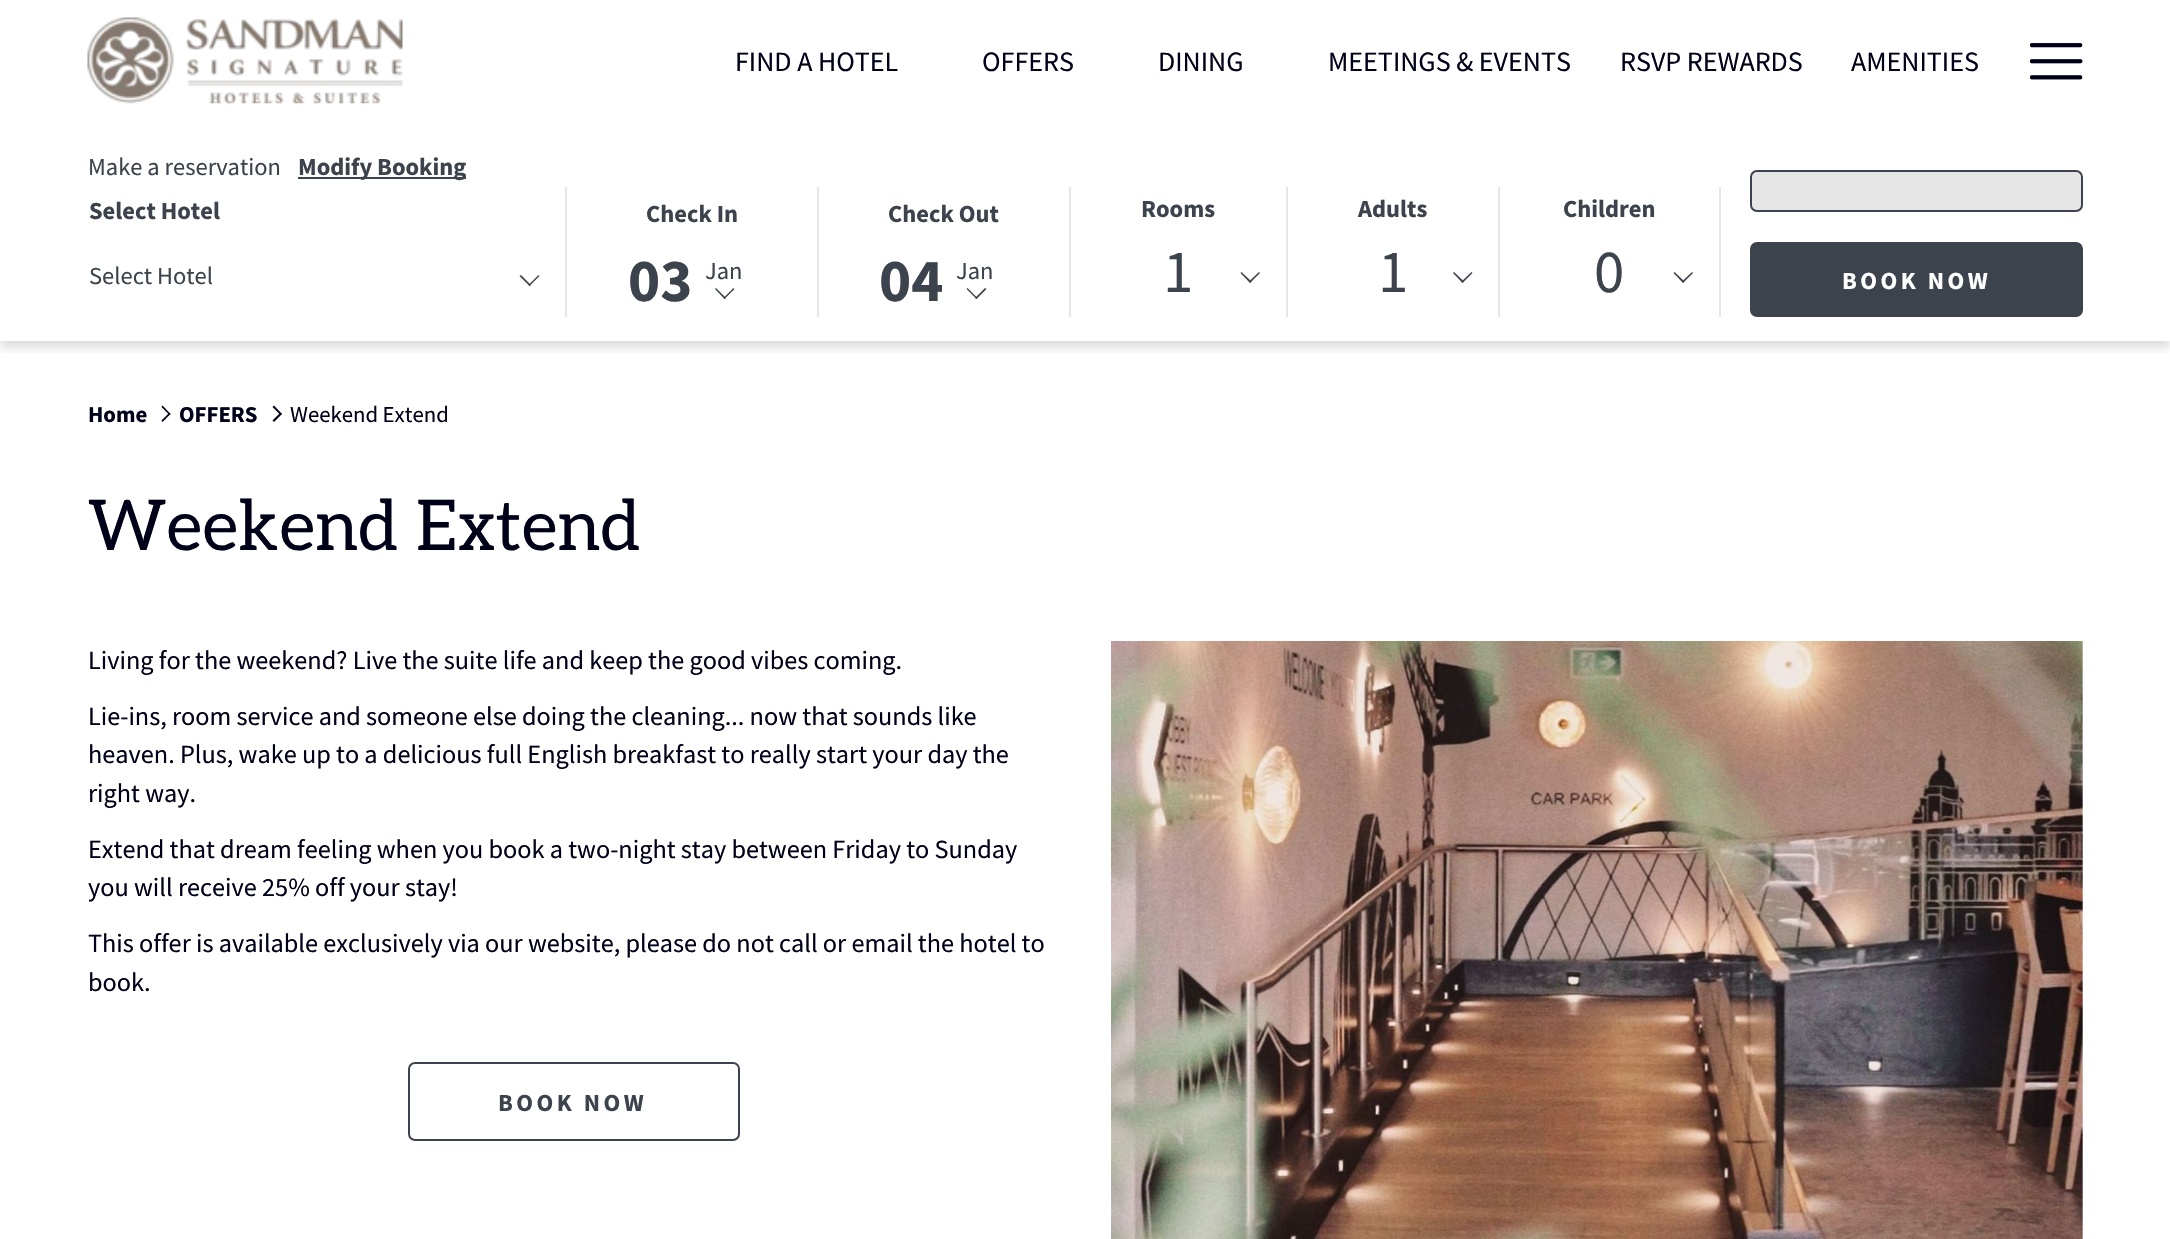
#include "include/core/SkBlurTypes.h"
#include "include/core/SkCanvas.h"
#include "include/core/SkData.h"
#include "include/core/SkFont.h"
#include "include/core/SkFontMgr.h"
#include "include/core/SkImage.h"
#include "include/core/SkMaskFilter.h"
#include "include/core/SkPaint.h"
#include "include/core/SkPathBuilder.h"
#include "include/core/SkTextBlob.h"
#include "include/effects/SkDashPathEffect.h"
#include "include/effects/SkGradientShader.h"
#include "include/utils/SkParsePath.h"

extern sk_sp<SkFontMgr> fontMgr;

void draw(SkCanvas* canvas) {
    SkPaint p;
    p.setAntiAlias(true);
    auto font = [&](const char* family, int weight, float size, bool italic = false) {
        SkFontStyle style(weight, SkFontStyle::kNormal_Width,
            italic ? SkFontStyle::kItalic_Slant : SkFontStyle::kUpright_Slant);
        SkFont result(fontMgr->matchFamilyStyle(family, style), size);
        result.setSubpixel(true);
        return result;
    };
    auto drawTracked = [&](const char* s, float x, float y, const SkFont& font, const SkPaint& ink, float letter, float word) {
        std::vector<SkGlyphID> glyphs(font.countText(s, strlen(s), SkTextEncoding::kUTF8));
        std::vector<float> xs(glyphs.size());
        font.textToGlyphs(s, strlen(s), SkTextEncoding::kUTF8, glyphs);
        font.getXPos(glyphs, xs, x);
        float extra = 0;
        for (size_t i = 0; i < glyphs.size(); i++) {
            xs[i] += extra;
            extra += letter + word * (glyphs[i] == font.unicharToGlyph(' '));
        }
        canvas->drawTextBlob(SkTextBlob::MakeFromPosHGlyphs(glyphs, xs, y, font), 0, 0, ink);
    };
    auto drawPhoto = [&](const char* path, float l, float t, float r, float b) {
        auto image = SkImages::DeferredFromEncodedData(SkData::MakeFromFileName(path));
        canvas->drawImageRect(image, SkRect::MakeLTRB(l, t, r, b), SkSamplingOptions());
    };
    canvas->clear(0xFFFFFFFF);
    canvas->save();
    canvas->clipRect(SkRect::MakeLTRB(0, 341, 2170, 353));
    p.setColor(0x26000000);
    p.setMaskFilter(SkMaskFilter::MakeBlur(kNormal_SkBlurStyle, 5));
    canvas->drawRect(SkRect::MakeLTRB(0, 5, 2170, 347), p);
    p.setMaskFilter(nullptr);
    canvas->restore();
    drawPhoto("media/1.png", 87, 17, 403, 104);
    auto font1 = font("Source Sans Pro", 400, 28);
    p.setColor(0xFF000018);
    {
        const struct { const char* s; float x, y; } items[] = {
            {"FIND A HOTEL", 735, 71},
            {"OFFERS", 982, 71},
            {"DINING", 1158, 71},
            {"MEETINGS & EVENTS", 1328, 71},
            {"RSVP REWARDS", 1620, 71},
            {"AMENITIES", 1851, 71},
        };
        for (auto [s, x, y] : items) {
            canvas->drawString(s, x, y, font1, p);
        }
    }
    drawPhoto("media/2.png", 2030, 43, 2083, 80);
    auto font2 = font("Source Sans Pro", 400, 24.5f);
    p.setColor(0xFF3C434C);
    canvas->drawString("Make a reservation", 88, 175, font2, p);
    canvas->drawRect(SkRect::MakeLTRB(298, 177, 466, 179), p);
    auto font3 = font("Source Sans Pro", 700, 24.5f);
    canvas->drawString("Modify Booking", 298, 175, font3, p);
    p.setColor(0xFFE6E6E6);
    canvas->drawRect(SkRect::MakeLTRB(565, 187, 567, 317), p);
    p.setColor(0xFF3C434C);
    canvas->drawString("Select Hotel", 89, 219, font3, p);
    canvas->drawString("Select Hotel", 89, 284, font2, p);
    canvas->drawPath(SkPathBuilder().moveTo(538.5f, 275).lineTo(539.5f, 276).lineTo(529.5f, 286).lineTo(528.5f, 285).close().detach(), p);
    canvas->drawPath(SkPathBuilder().moveTo(521, 275).lineTo(531, 285).lineTo(529.5f, 286).lineTo(519.5f, 276).close().detach(), p);
    p.setColor(0xFFE6E6E6);
    canvas->drawRect(SkRect::MakeLTRB(817, 187, 819, 317), p);
    p.setColor(0xFF3C434C);
    canvas->drawString("Check In", 646, 222, font3, p);
    auto font4 = font("Source Sans Pro", 700, 61);
    canvas->drawString("03", 628, 301, font4, p);
    canvas->drawString("Jan", 705, 279, font2, p);
    canvas->drawPath(SkPathBuilder().moveTo(733.5f, 288).lineTo(734.5f, 289).lineTo(724.5f, 299).lineTo(723.5f, 298).close().detach(), p);
    canvas->drawPath(SkPathBuilder().moveTo(716, 288).lineTo(726, 298).lineTo(724.5f, 299).lineTo(715, 289).close().detach(), p);
    p.setColor(0xFFE6E6E6);
    canvas->drawRect(SkRect::MakeLTRB(1069, 187, 1071, 317), p);
    p.setColor(0xFF3C434C);
    canvas->drawString("Check Out", 888, 222, font3, p);
    canvas->drawString("04", 879, 301, font4, p);
    canvas->drawString("Jan", 956, 279, font2, p);
    canvas->drawPath(SkPathBuilder().moveTo(985, 288).lineTo(986.5f, 289).lineTo(976.5f, 299).lineTo(975, 298).close().detach(), p);
    canvas->drawPath(SkPathBuilder().moveTo(967.5f, 288).lineTo(977.5f, 298).lineTo(976.5f, 299).lineTo(966.5f, 289).close().detach(), p);
    p.setColor(0xFFE6E6E6);
    canvas->drawRect(SkRect::MakeLTRB(1286, 187, 1288, 317), p);
    p.setColor(0xFF3C434C);
    canvas->drawString("Rooms", 1141, 217, font3, p);
    auto font5 = font("Source Sans Pro", 400, 61);
    canvas->drawString("1", 1163, 292, font5, p);
    canvas->drawPath(SkPathBuilder().moveTo(1259, 272).lineTo(1260, 273).lineTo(1250, 283).lineTo(1249, 281.5f).close().detach(), p);
    canvas->drawPath(SkPathBuilder().moveTo(1241.5f, 272).lineTo(1251.5f, 281.5f).lineTo(1250, 283).lineTo(1240.5f, 273).close().detach(), p);
    p.setColor(0xFFE6E6E6);
    canvas->drawRect(SkRect::MakeLTRB(1498, 187, 1500, 317), p);
    p.setColor(0xFF3C434C);
    canvas->drawString("Adults", 1358, 217, font3, p);
    canvas->drawString("1", 1378, 292, font5, p);
    canvas->drawPath(SkPathBuilder().moveTo(1471.5f, 272).lineTo(1472.5f, 273).lineTo(1462.5f, 283).lineTo(1461.5f, 281.5f).close().detach(), p);
    canvas->drawPath(SkPathBuilder().moveTo(1454, 272).lineTo(1464, 281.5f).lineTo(1462.5f, 283).lineTo(1453, 273).close().detach(), p);
    p.setColor(0xFFE6E6E6);
    canvas->drawRect(SkRect::MakeLTRB(1719, 187, 1721, 317), p);
    p.setColor(0xFF3C434C);
    canvas->drawString("Children", 1563, 217, font3, p);
    canvas->drawString("0", 1594, 292, font5, p);
    canvas->drawPath(SkPathBuilder().moveTo(1692, 272).lineTo(1693, 273).lineTo(1683, 283).lineTo(1682, 281.5f).close().detach(), p);
    canvas->drawPath(SkPathBuilder().moveTo(1674.5f, 272).lineTo(1684.5f, 281.5f).lineTo(1683, 283).lineTo(1673.5f, 273).close().detach(), p);
    p.setColor(0xFFE6E6E6);
    canvas->drawRoundRect(SkRect::MakeLTRB(1751, 171, 2082, 211), 6, 6, p);
    p.setStyle(SkPaint::kStroke_Style);
    p.setStrokeWidth(2);
    p.setColor(0xFF3C434C);
    canvas->drawRoundRect(SkRect::MakeLTRB(1751, 171, 2082, 211), 6, 6, p);
    p.setStyle(SkPaint::kFill_Style);
    canvas->drawRoundRect(SkRect::MakeLTRB(1750, 242, 2083, 317), 7, 7, p);
    p.setColor(0xFFFFFFFF);
    drawTracked("BOOK NOW", 1842, 289, font3, p, 3.5f, 0);
    auto font6 = font("Source Sans Pro", 700, 22.75f);
    p.setColor(0xFF000018);
    canvas->drawString("Home", 88, 422, font6, p);
    canvas->drawPath(SkPathBuilder().moveTo(161.5f, 407).lineTo(162.5f, 405.5f).lineTo(170.5f, 414).lineTo(169.5f, 415).close().detach(), p);
    canvas->drawPath(SkPathBuilder().moveTo(161.5f, 420.5f).lineTo(169.5f, 412.5f).lineTo(170.5f, 414).lineTo(162.5f, 422).close().detach(), p);
    canvas->drawString("OFFERS", 179, 422, font6, p);
    canvas->drawPath(SkPathBuilder().moveTo(272.5f, 407).lineTo(274, 405.5f).lineTo(282, 414).lineTo(280.5f, 415).close().detach(), p);
    canvas->drawPath(SkPathBuilder().moveTo(272.5f, 420.5f).lineTo(280.5f, 412.5f).lineTo(282, 414).lineTo(274, 422).close().detach(), p);
    auto font7 = font("Source Sans Pro", 400, 22.75f);
    canvas->drawString("Weekend Extend", 290, 422, font7, p);
    auto font8 = font("Aleo", 400, 70);
    canvas->drawString("Weekend Extend", 88, 550, font8, p);
    auto font9 = font("Source Sans Pro", 400, 26.25f);
    {
        const struct { const char* s; float x, y; } items[] = {
            {"Living for the weekend? Live the suite life and keep the good vibes coming.", 88, 669},
            {"Lie-ins, room service and someone else doing the cleaning... now that sounds like", 88, 725},
            {"heaven. Plus, wake up to a delicious full English breakfast to really start your day the", 88, 763},
            {"right way.", 88, 802},
            {"Extend that dream feeling when you book a two-night stay between Friday to Sunday", 88, 858},
            {"you will receive 25% off your stay!", 88, 896},
            {"This offer is available exclusively via our website, please do not call or email the hotel to", 88, 952},
            {"book.", 88, 991},
        };
        for (auto [s, x, y] : items) {
            canvas->drawString(s, x, y, font9, p);
        }
    }
    p.setStyle(SkPaint::kStroke_Style);
    p.setColor(0xFF3C434C);
    canvas->drawRoundRect(SkRect::MakeLTRB(409, 1063, 739, 1140), 6, 6, p);
    p.setStyle(SkPaint::kFill_Style);
    drawTracked("BOOK NOW", 498, 1111, font3, p, 3.5f, 0);
    drawPhoto("media/3.png", 1111, 641, 2083, 1239);
}
